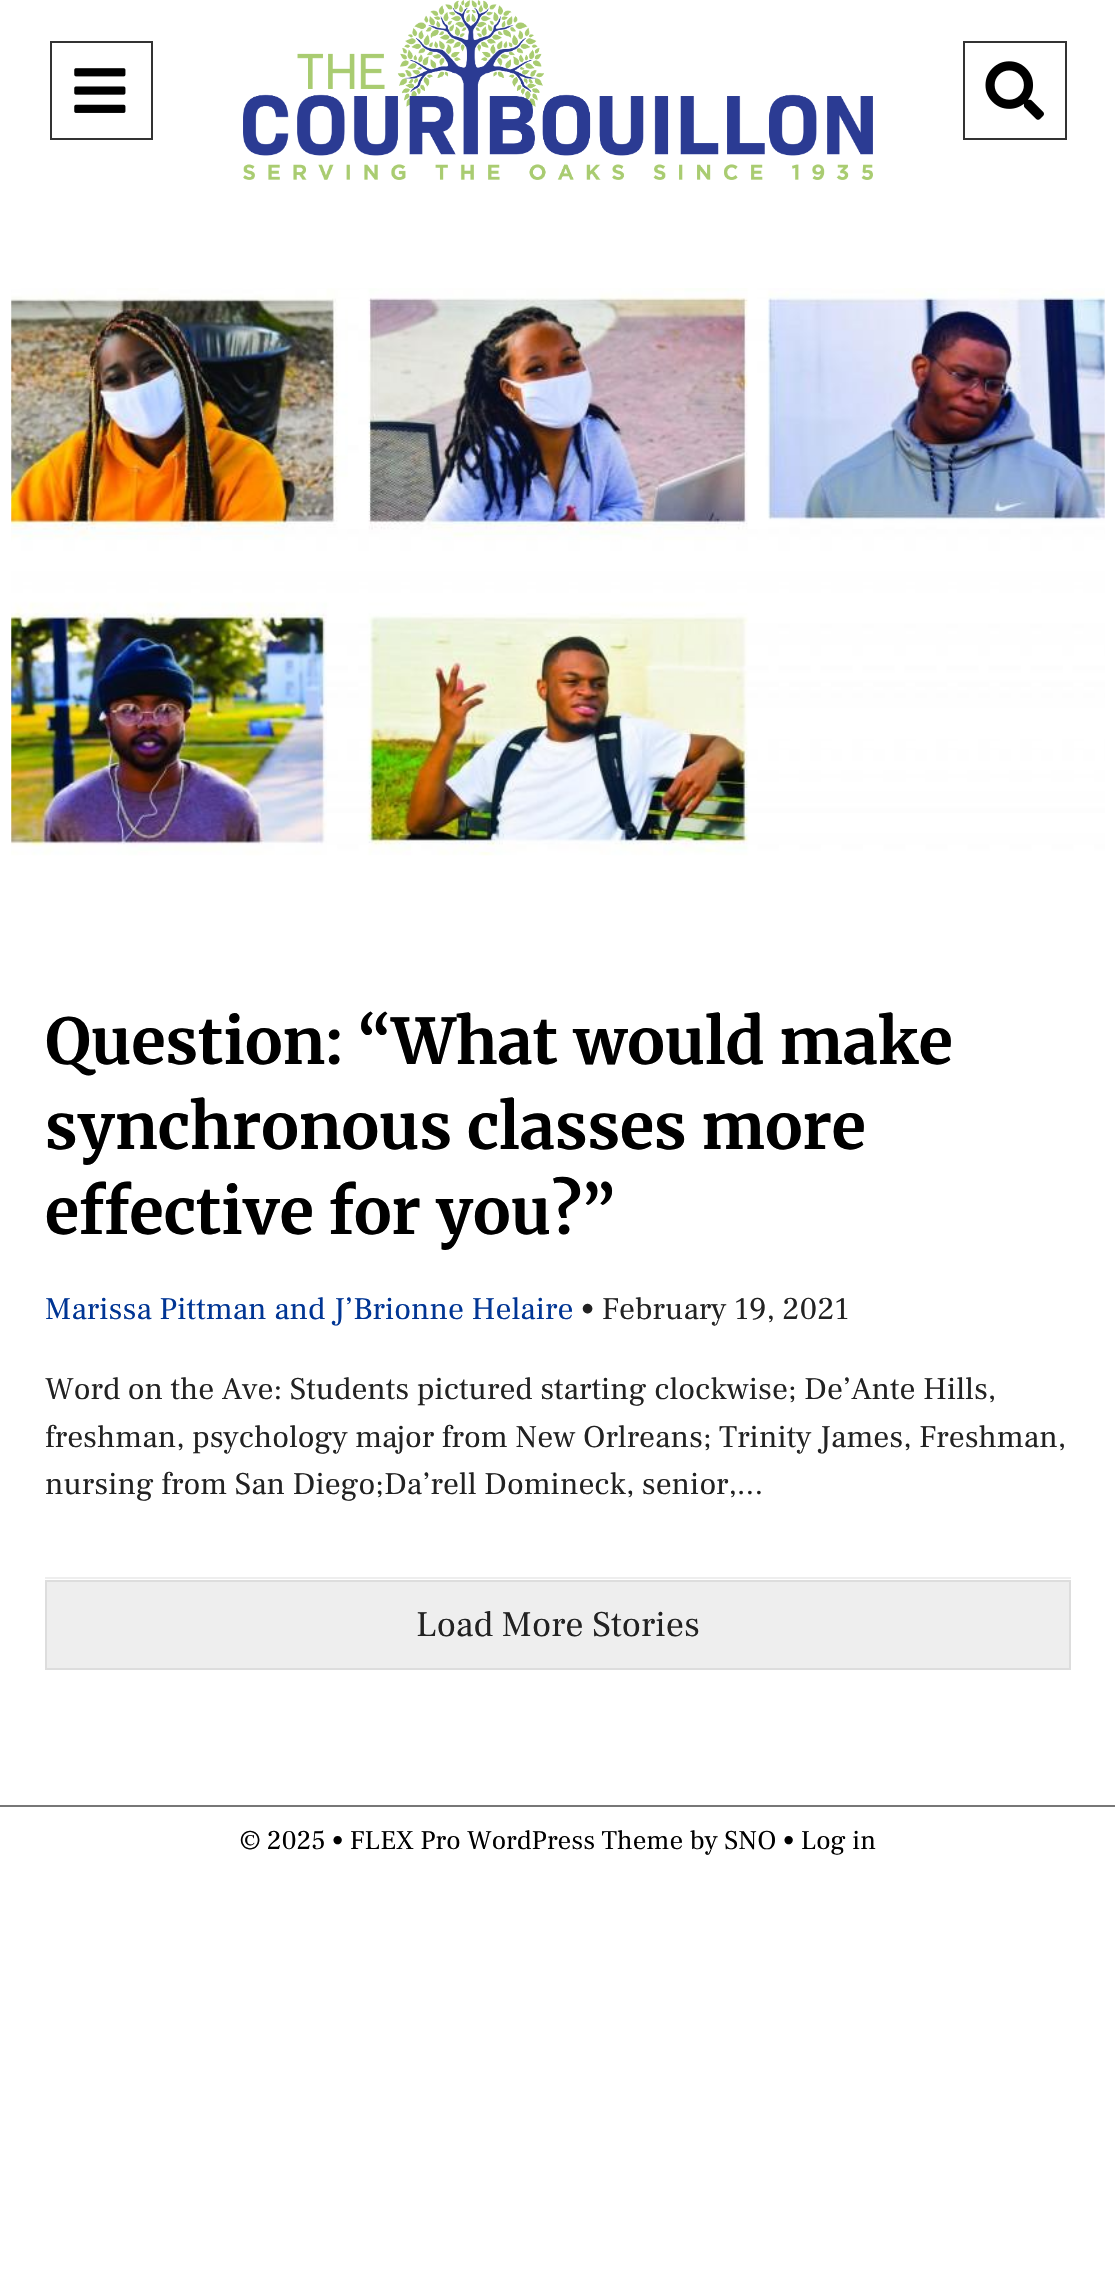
#include "include/core/SkBlurTypes.h"
#include "include/core/SkCanvas.h"
#include "include/core/SkData.h"
#include "include/core/SkFont.h"
#include "include/core/SkFontMgr.h"
#include "include/core/SkImage.h"
#include "include/core/SkMaskFilter.h"
#include "include/core/SkPaint.h"
#include "include/core/SkPathBuilder.h"
#include "include/core/SkTextBlob.h"
#include "include/effects/SkDashPathEffect.h"
#include "include/effects/SkGradientShader.h"
#include "include/utils/SkParsePath.h"

extern sk_sp<SkFontMgr> fontMgr;

void draw(SkCanvas* canvas) {
    SkPaint p;
    p.setAntiAlias(true);
    auto font = [&](const char* family, int weight, float size, bool italic = false) {
        SkFontStyle style(weight, SkFontStyle::kNormal_Width,
            italic ? SkFontStyle::kItalic_Slant : SkFontStyle::kUpright_Slant);
        SkFont result(fontMgr->matchFamilyStyle(family, style), size);
        result.setSubpixel(true);
        return result;
    };
    auto drawPhoto = [&](const char* path, float l, float t, float r, float b) {
        auto image = SkImages::DeferredFromEncodedData(SkData::MakeFromFileName(path));
        canvas->drawImageRect(image, SkRect::MakeLTRB(l, t, r, b), SkSamplingOptions());
    };
    canvas->clear(0xFFFFFFFF);
    p.setStyle(SkPaint::kStroke_Style);
    p.setStrokeWidth(2);
    p.setColor(0xFF333333);
    canvas->drawRect(SkRect::MakeLTRB(51, 42, 152, 139), p);
    drawPhoto("media/1.png", 74, 68, 126, 113);
    drawPhoto("media/2.png", 243, 0, 873, 180);
    canvas->drawRect(SkRect::MakeLTRB(964, 42, 1066, 139), p);
    drawPhoto("media/3.png", 985, 61, 1044, 120);
    p.setStyle(SkPaint::kFill_Style);
    p.setColor(0xFFEEEEEE);
    canvas->drawRect(SkRect::MakeLTRB(45, 1577, 1071, 1579), p);
    drawPhoto("media/4.png", 11, 288, 1105, 856);
    auto font1 = font("Merriweather", 700, 63);
    p.setColor(0xFF000000);
    {
        const struct { const char* s; float x, y; } items[] = {
            {"Question: “What would make", 45, 1064},
            {"synchronous classes more", 45, 1149},
            {"effective for you?”", 45, 1234},
        };
        for (auto [s, x, y] : items) {
            canvas->drawString(s, x, y, font1, p);
        }
    }
    auto font2 = font("Frank Ruhl Libre", 400, 31.5f);
    p.setColor(0xFF003594);
    canvas->drawString("Marissa Pittman and J’Brionne Helaire", 45, 1319, font2, p);
    p.setColor(0xFF222222);
    {
        const struct { const char* s; float x, y; } items[] = {
            {"• February 19, 2021", 581, 1319},
            {"Word on the Ave: Students pictured starting clockwise; De’Ante Hills,", 45, 1399},
            {"freshman, psychology major from New Orlreans; Trinity James, Freshman,", 45, 1447},
            {"nursing from San Diego;Da’rell Domineck, senior,...", 45, 1494},
        };
        for (auto [s, x, y] : items) {
            canvas->drawString(s, x, y, font2, p);
        }
    }
    p.setColor(0xFFEEEEEE);
    canvas->drawRect(SkRect::MakeLTRB(46, 1581, 1070, 1669), p);
    p.setStyle(SkPaint::kStroke_Style);
    p.setColor(0xFFDDDDDD);
    canvas->drawRect(SkRect::MakeLTRB(46, 1581, 1070, 1669), p);
    auto font3 = font("Frank Ruhl Libre", 400, 36);
    p.setStyle(SkPaint::kFill_Style);
    p.setColor(0xFF222222);
    canvas->drawString("Load More Stories", 416, 1636, font3, p);
    p.setColor(0xFF777777);
    canvas->drawRect(SkRect::MakeLTRB(0, 1805, 1115, 1807), p);
    auto font4 = font("Frank Ruhl Libre", 400, 27);
    p.setColor(0xFF000000);
    canvas->drawString("© 2025 • FLEX Pro WordPress Theme by SNO • Log in", 240, 1849, font4, p);
}
